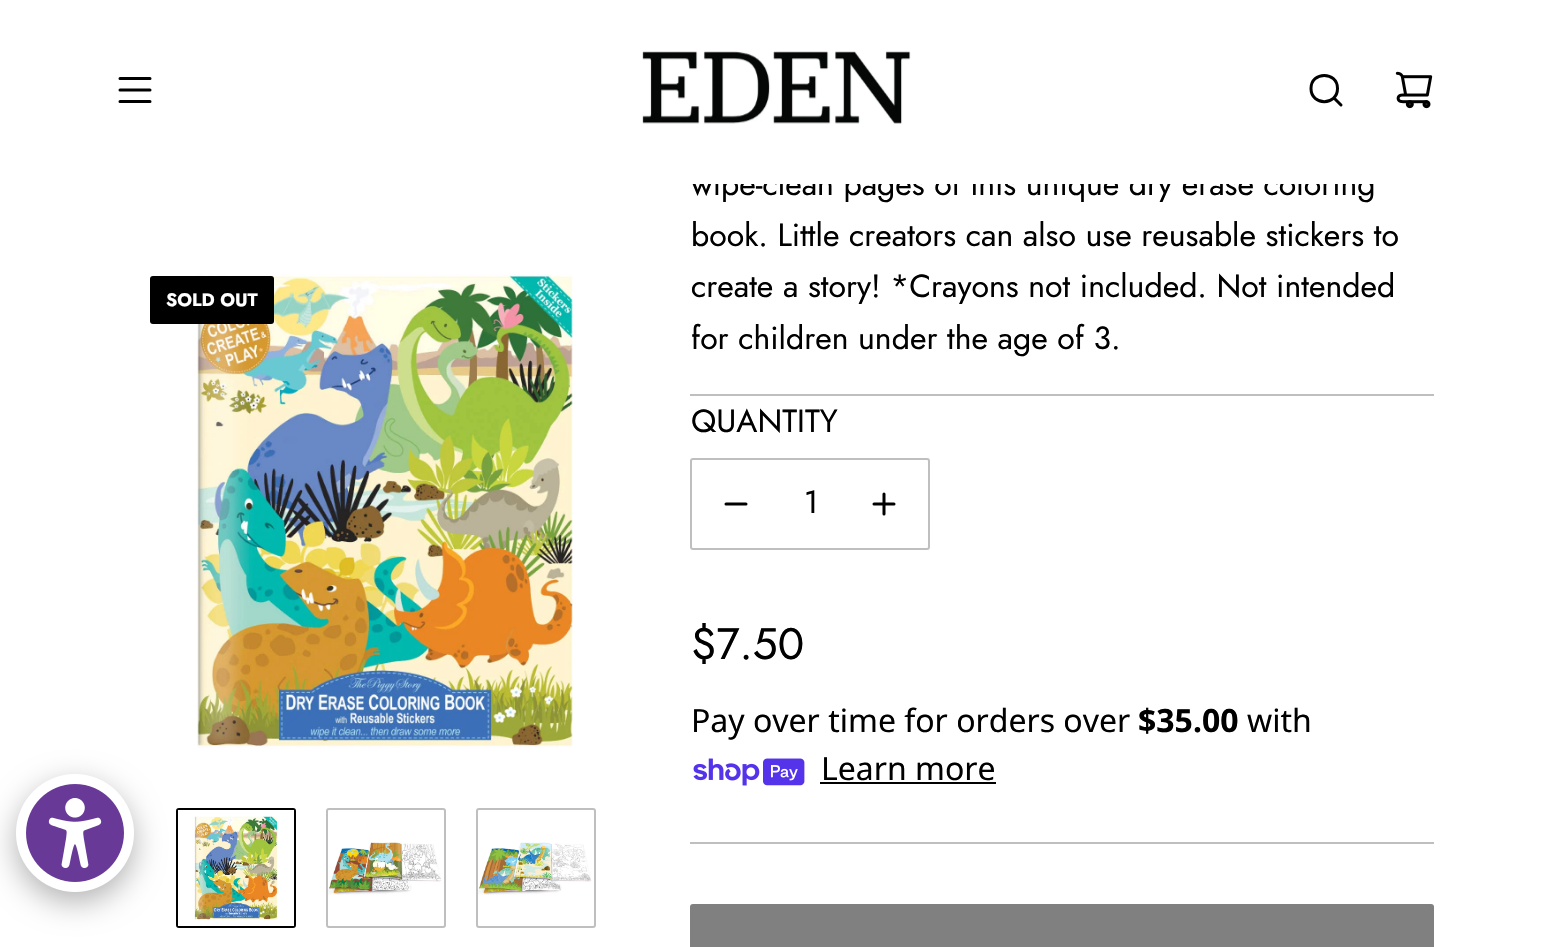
#include "include/core/SkBlurTypes.h"
#include "include/core/SkCanvas.h"
#include "include/core/SkData.h"
#include "include/core/SkFont.h"
#include "include/core/SkFontMgr.h"
#include "include/core/SkImage.h"
#include "include/core/SkMaskFilter.h"
#include "include/core/SkPaint.h"
#include "include/core/SkPathBuilder.h"
#include "include/core/SkTextBlob.h"
#include "include/effects/SkDashPathEffect.h"
#include "include/effects/SkGradientShader.h"
#include "include/utils/SkParsePath.h"

extern sk_sp<SkFontMgr> fontMgr;

void draw(SkCanvas* canvas) {
    SkPaint p;
    p.setAntiAlias(true);
    auto font = [&](const char* family, int weight, float size, bool italic = false) {
        SkFontStyle style(weight, SkFontStyle::kNormal_Width,
            italic ? SkFontStyle::kItalic_Slant : SkFontStyle::kUpright_Slant);
        SkFont result(fontMgr->matchFamilyStyle(family, style), size);
        result.setSubpixel(true);
        return result;
    };
    auto drawPhoto = [&](const char* path, float l, float t, float r, float b) {
        auto image = SkImages::DeferredFromEncodedData(SkData::MakeFromFileName(path));
        canvas->drawImageRect(image, SkRect::MakeLTRB(l, t, r, b), SkSamplingOptions());
    };
    canvas->clear(0xFFFFFFFF);
    auto font1 = font("Jost", 400, 32);
    p.setColor(0xFF000000);
    canvas->drawString("wipe-clean pages of this unique dry erase coloring", 691, 195, font1, p);
    p.setColor(0xFFFFFFFF);
    canvas->drawRect(SkRect::MakeLTRB(691, 169, 1374, 184), p);
    p.setStyle(SkPaint::kStroke_Style);
    p.setStrokeWidth(3);
    p.setStrokeCap(SkPaint::kRound_Cap);
    p.setStrokeJoin(SkPaint::kRound_Join);
    p.setColor(0xFF000000);
    canvas->drawPath(SkPathBuilder().moveTo(120, 78.5f).lineTo(150, 78.5f).moveTo(120, 90).lineTo(150, 90).moveTo(120, 101.5f).lineTo(150, 101.5f).detach(), p);
    drawPhoto("media/1.png", 642, 51, 911, 124);
    canvas->drawPath(SkPathBuilder().moveTo(1334.5f, 98.5f).lineTo(1341, 105).moveTo(1311, 88.5f).cubicTo(1311, 106, 1337.5f, 106, 1337.5f, 88.5f).cubicTo(1337.5f, 71, 1311, 71, 1311, 88.5f).close().detach(), p);
    drawPhoto("media/2.png", 1395, 71, 1433, 109);
    drawPhoto("media/3.png", 197, 274, 573, 748);
    p.setStyle(SkPaint::kFill_Style);
    canvas->drawRoundRect(SkRect::MakeLTRB(150, 276, 274, 324), 3, 3, p);
    auto font2 = font("Jost", 700, 18);
    p.setColor(0xFFFFFFFF);
    canvas->drawString("SOLD OUT", 166, 306, font2, p);
    p.setStyle(SkPaint::kStroke_Style);
    p.setStrokeWidth(2);
    p.setStrokeCap(SkPaint::kButt_Cap);
    p.setStrokeJoin(SkPaint::kMiter_Join);
    p.setColor(0xFF000000);
    canvas->drawRoundRect(SkRect::MakeLTRB(177, 809, 295, 927), 2, 2, p);
    drawPhoto("media/4.png", 182, 814, 290, 922);
    p.setStrokeWidth(4);
    p.setColor(0xFFFFFFFF);
    canvas->drawPath(SkPathBuilder().moveTo(180, 812).lineTo(292, 812).lineTo(292, 924).lineTo(180, 924).close().detach(), p);
    p.setStrokeWidth(2);
    p.setColor(0xFFBFBFBF);
    canvas->drawRoundRect(SkRect::MakeLTRB(327, 809, 445, 927), 2, 2, p);
    drawPhoto("media/5.png", 328, 842, 442, 895);
    canvas->drawRoundRect(SkRect::MakeLTRB(477, 809, 595, 927), 2, 2, p);
    drawPhoto("media/6.png", 478, 842, 592, 895);
    p.setStyle(SkPaint::kFill_Style);
    canvas->drawRect(SkRect::MakeLTRB(690, 394, 1434, 396), p);
    p.setColor(0xFF000000);
    {
        const struct { const char* s; float x, y; } items[] = {
            {"book. Little creators can also use reusable stickers to", 691, 246},
            {"create a story! *Crayons not included. Not intended", 691, 297},
            {"for children under the age of 3.", 691, 349},
            {"QUANTITY", 691, 432},
        };
        for (auto [s, x, y] : items) {
            canvas->drawString(s, x, y, font1, p);
        }
    }
    p.setStyle(SkPaint::kStroke_Style);
    p.setColor(0xFFBFBFBF);
    canvas->drawRoundRect(SkRect::MakeLTRB(691, 459, 929, 549), 2, 2, p);
    p.setStrokeWidth(3);
    p.setStrokeCap(SkPaint::kRound_Cap);
    p.setStrokeJoin(SkPaint::kRound_Join);
    p.setColor(0xFF000000);
    canvas->drawPath(SkPathBuilder().moveTo(726, 504).lineTo(746, 504).detach(), p);
    p.setStyle(SkPaint::kFill_Style);
    canvas->drawString("1", 804, 513, font1, p);
    p.setStyle(SkPaint::kStroke_Style);
    canvas->drawPath(SkPathBuilder().moveTo(874, 504).lineTo(884, 504).moveTo(884, 504).lineTo(894, 504).moveTo(884, 504).lineTo(884, 494).moveTo(884, 504).lineTo(884, 514).detach(), p);
    auto font3 = font("Jost", 400, 44);
    p.setStyle(SkPaint::kFill_Style);
    canvas->drawString("$7.50", 691, 659, font3, p);
    auto font4 = font("Noto Sans", 400, 32);
    canvas->drawString("Pay over time for orders over", 691, 732, font4, p);
    auto font5 = font("Noto Sans", 700, 32);
    canvas->drawString("$35.00", 1138, 732, font5, p);
    canvas->drawString("with", 1247, 732, font4, p);
    drawPhoto("media/7.png", 693, 758, 805, 786);
    canvas->drawString("Learn more", 821, 780, font4, p);
    canvas->drawRect(SkRect::MakeLTRB(820, 782, 996, 784), p);
    p.setColor(0xFFBFBFBF);
    canvas->drawRect(SkRect::MakeLTRB(690, 842, 1434, 844), p);
    p.setColor(0xFF808080);
    canvas->drawRoundRect(SkRect::MakeLTRB(690, 904, 1434, 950), 3, 3, p);
    p.setColor(0x4D000000);
    p.setMaskFilter(SkMaskFilter::MakeBlur(kNormal_SkBlurStyle, 15));
    canvas->drawRoundRect(SkRect::MakeLTRB(16, 784, 134, 902), 59, 59, p);
    p.setMaskFilter(nullptr);
    drawPhoto("media/8.png", 16, 774, 134, 892);
}
